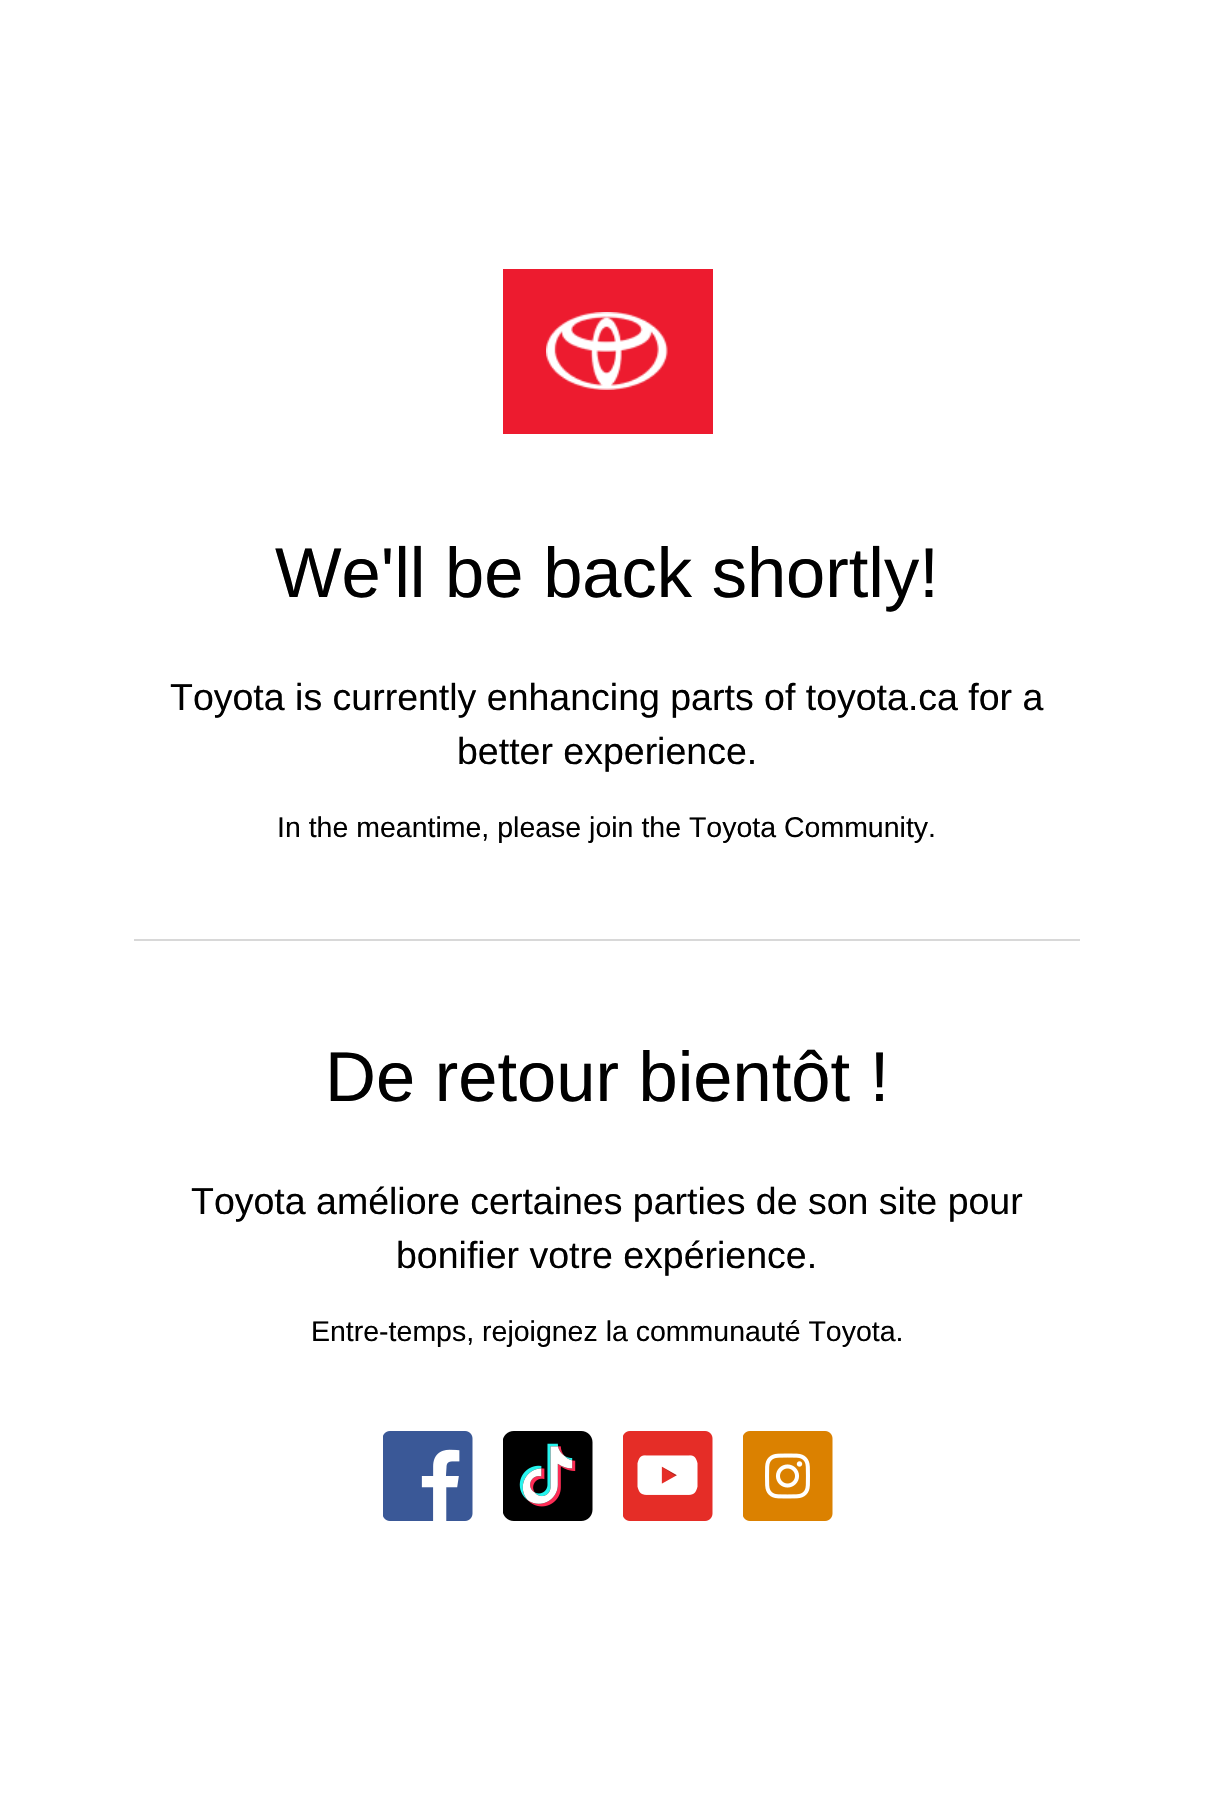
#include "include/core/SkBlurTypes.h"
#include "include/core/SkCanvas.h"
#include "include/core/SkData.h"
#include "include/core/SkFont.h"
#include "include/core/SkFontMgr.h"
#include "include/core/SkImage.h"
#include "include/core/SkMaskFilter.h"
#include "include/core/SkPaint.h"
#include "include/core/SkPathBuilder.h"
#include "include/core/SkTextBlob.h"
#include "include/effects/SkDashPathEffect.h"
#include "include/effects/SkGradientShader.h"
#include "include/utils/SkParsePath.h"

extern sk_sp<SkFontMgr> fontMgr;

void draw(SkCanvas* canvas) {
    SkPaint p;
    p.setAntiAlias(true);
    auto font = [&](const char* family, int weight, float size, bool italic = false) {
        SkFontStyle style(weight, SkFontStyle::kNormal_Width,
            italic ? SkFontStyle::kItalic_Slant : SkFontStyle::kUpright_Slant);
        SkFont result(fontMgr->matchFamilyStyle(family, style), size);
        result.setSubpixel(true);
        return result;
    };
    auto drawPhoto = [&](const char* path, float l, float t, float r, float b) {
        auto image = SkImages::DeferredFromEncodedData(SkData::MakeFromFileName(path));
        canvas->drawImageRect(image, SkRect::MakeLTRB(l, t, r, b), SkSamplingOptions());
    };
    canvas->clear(0xFFFFFFFF);
    p.setColor(0xFFED1B2F);
    canvas->drawRect(SkRect::MakeLTRB(503, 269, 713, 434), p);
    drawPhoto("media/1.png", 546, 312, 668, 390);
    auto font1 = font("Liberation Sans", 400, 70.5f);
    p.setColor(0xFF000000);
    canvas->drawString("We'll be back shortly!", 275, 597, font1, p);
    auto font2 = font("Liberation Sans", 400, 37.5f);
    canvas->drawString("Toyota is currently enhancing parts of toyota.ca for a", 170, 710, font2, p);
    canvas->drawString("better experience.", 457, 764, font2, p);
    auto font3 = font("Liberation Sans", 400, 28.5f);
    canvas->drawString("In the meantime, please join the Toyota Community.", 277, 837, font3, p);
    p.setColor(0xFFD8D8D8);
    canvas->drawRect(SkRect::MakeLTRB(134, 939, 1080, 941), p);
    p.setColor(0xFF000000);
    canvas->drawString("De retour bientôt !", 325, 1101, font1, p);
    canvas->drawString("Toyota améliore certaines parties de son site pour", 191, 1214, font2, p);
    canvas->drawString("bonifier votre expérience.", 396, 1268, font2, p);
    canvas->drawString("Entre-temps, rejoignez la communauté Toyota.", 311, 1341, font3, p);
    drawPhoto("media/2.png", 383, 1431, 473, 1521);
    drawPhoto("media/3.png", 503, 1431, 593, 1521);
    drawPhoto("media/4.png", 623, 1431, 713, 1521);
    drawPhoto("media/5.png", 743, 1431, 833, 1521);
}
